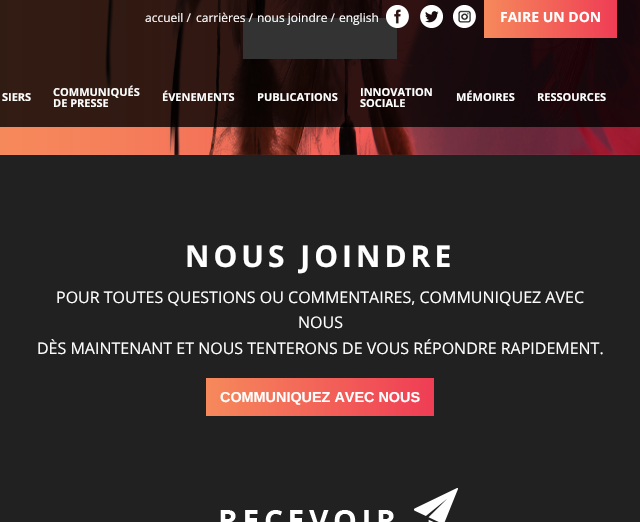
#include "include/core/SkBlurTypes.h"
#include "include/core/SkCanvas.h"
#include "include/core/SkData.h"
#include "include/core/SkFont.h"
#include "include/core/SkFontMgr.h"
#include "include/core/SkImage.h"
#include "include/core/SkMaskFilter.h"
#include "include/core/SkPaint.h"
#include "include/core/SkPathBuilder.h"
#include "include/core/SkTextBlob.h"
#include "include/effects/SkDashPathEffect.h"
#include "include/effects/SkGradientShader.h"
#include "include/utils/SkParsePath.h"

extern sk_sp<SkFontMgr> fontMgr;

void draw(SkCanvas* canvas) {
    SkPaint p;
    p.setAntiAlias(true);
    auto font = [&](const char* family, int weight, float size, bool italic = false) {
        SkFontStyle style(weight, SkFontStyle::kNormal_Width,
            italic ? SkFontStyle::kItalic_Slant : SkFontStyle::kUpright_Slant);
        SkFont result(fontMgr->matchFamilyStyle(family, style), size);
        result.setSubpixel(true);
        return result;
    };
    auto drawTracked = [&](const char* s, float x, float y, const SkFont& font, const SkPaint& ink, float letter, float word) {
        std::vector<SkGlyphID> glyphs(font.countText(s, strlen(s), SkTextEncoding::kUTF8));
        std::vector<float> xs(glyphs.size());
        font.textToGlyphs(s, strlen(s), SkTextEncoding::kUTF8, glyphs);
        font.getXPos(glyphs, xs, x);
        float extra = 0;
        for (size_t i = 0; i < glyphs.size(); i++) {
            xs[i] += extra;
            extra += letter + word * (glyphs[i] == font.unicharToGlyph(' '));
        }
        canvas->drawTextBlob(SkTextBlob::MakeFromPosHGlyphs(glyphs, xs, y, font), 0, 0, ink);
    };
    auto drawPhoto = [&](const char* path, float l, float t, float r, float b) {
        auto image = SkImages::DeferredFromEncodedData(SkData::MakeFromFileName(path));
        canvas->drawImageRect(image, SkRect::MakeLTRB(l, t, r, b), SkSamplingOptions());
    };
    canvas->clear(0xFFFFFFFF);
    drawPhoto("media/1.png", 0, 0, 640, 155);
    p.setColor(0xFFFFFFFF);
    canvas->drawRect(SkRect::MakeLTRB(243, 18, 397, 59), p);
    p.setColor(0xCC000000);
    canvas->drawRect(SkRect::MakeLTRB(0, 0, 640, 127), p);
    auto font1 = font("Open Sans", 400, 12);
    p.setColor(0xFFFFFFFF);
    {
        const struct { const char* s; float x, y; } items[] = {
            {"accueil /", 145, 22},
            {"carrières /", 196, 22},
            {"nous joindre /", 257, 22},
            {"english", 339, 22},
        };
        for (auto [s, x, y] : items) {
            canvas->drawString(s, x, y, font1, p);
        }
    }
    drawPhoto("media/2.png", 386, 5, 409, 28);
    drawPhoto("media/3.png", 420, 5, 443, 28);
    drawPhoto("media/4.png", 453, 5, 476, 28);
    {
        const SkColor colors[] = {0xFF7DB9E8, 0xFFF6895B, 0xFFEF3D55, 0xFF1E5799, 0xFFEF3D55};
        const float stops[] = {0, 0, 1, 1, 1};
        const SkPoint ends[] = {{484, 17}, {617, 16}};
        p.setShader(SkGradientShader::MakeLinear(ends, colors, stops, 5, SkTileMode::kClamp));
        p.setAlpha(255);
    }
    canvas->drawRect(SkRect::MakeLTRB(484, 0, 617, 38), p);
    auto font2 = font("Open Sans", 700, 14);
    p.setShader(nullptr);
    p.setColor(0xFFFFFFFF);
    canvas->drawString("FAIRE UN DON", 500, 22, font2, p);
    auto font3 = font("Open Sans", 700, 11);
    {
        const struct { const char* s; float x, y; } items[] = {
            {"SIERS", 2, 101},
            {"COMMUNIQUÉS", 53, 96},
            {"DE PRESSE", 53, 107},
            {"ÉVENEMENTS", 162, 101},
            {"PUBLICATIONS", 257, 101},
            {"INNOVATION", 360, 96},
            {"SOCIALE", 360, 107},
            {"MÉMOIRES", 456, 101},
            {"RESSOURCES", 537, 101},
        };
        for (auto [s, x, y] : items) {
            canvas->drawString(s, x, y, font3, p);
        }
    }
    p.setColor(0xFF212121);
    canvas->drawRect(SkRect::MakeLTRB(0, 155, 640, 522), p);
    auto font4 = font("Open Sans", 700, 30);
    p.setColor(0xFFFFFFFF);
    drawTracked("NOUS JOINDRE", 185, 267, font4, p, 4, 0);
    auto font5 = font("Open Sans", 400, 16);
    {
        const struct { const char* s; float x, y; } items[] = {
            {"POUR TOUTES QUESTIONS OU COMMENTAIRES, COMMUNIQUEZ AVEC", 56, 303},
            {"NOUS", 298, 328},
            {"DÈS MAINTENANT ET NOUS TENTERONS DE VOUS RÉPONDRE RAPIDEMENT.", 37, 354},
        };
        for (auto [s, x, y] : items) {
            canvas->drawString(s, x, y, font5, p);
        }
    }
    {
        const SkColor colors[] = {0xFF7DB9E8, 0xFFF6895B, 0xFFEF3D55, 0xFF1E5799, 0xFFEF3D55};
        const float stops[] = {0, 0, 1, 1, 1};
        const SkPoint ends[] = {{206, 397}, {434, 397}};
        p.setShader(SkGradientShader::MakeLinear(ends, colors, stops, 5, SkTileMode::kClamp));
        p.setAlpha(255);
    }
    canvas->drawRect(SkRect::MakeLTRB(206, 378, 434, 416), p);
    auto font6 = font("Liberation Sans", 700, 14.4f);
    p.setShader(nullptr);
    p.setColor(0xFFFFFFFF);
    canvas->drawString("COMMUNIQUEZ AVEC NOUS", 220, 402, font6, p);
    drawPhoto("media/5.png", 220, 488, 458, 522);
}
